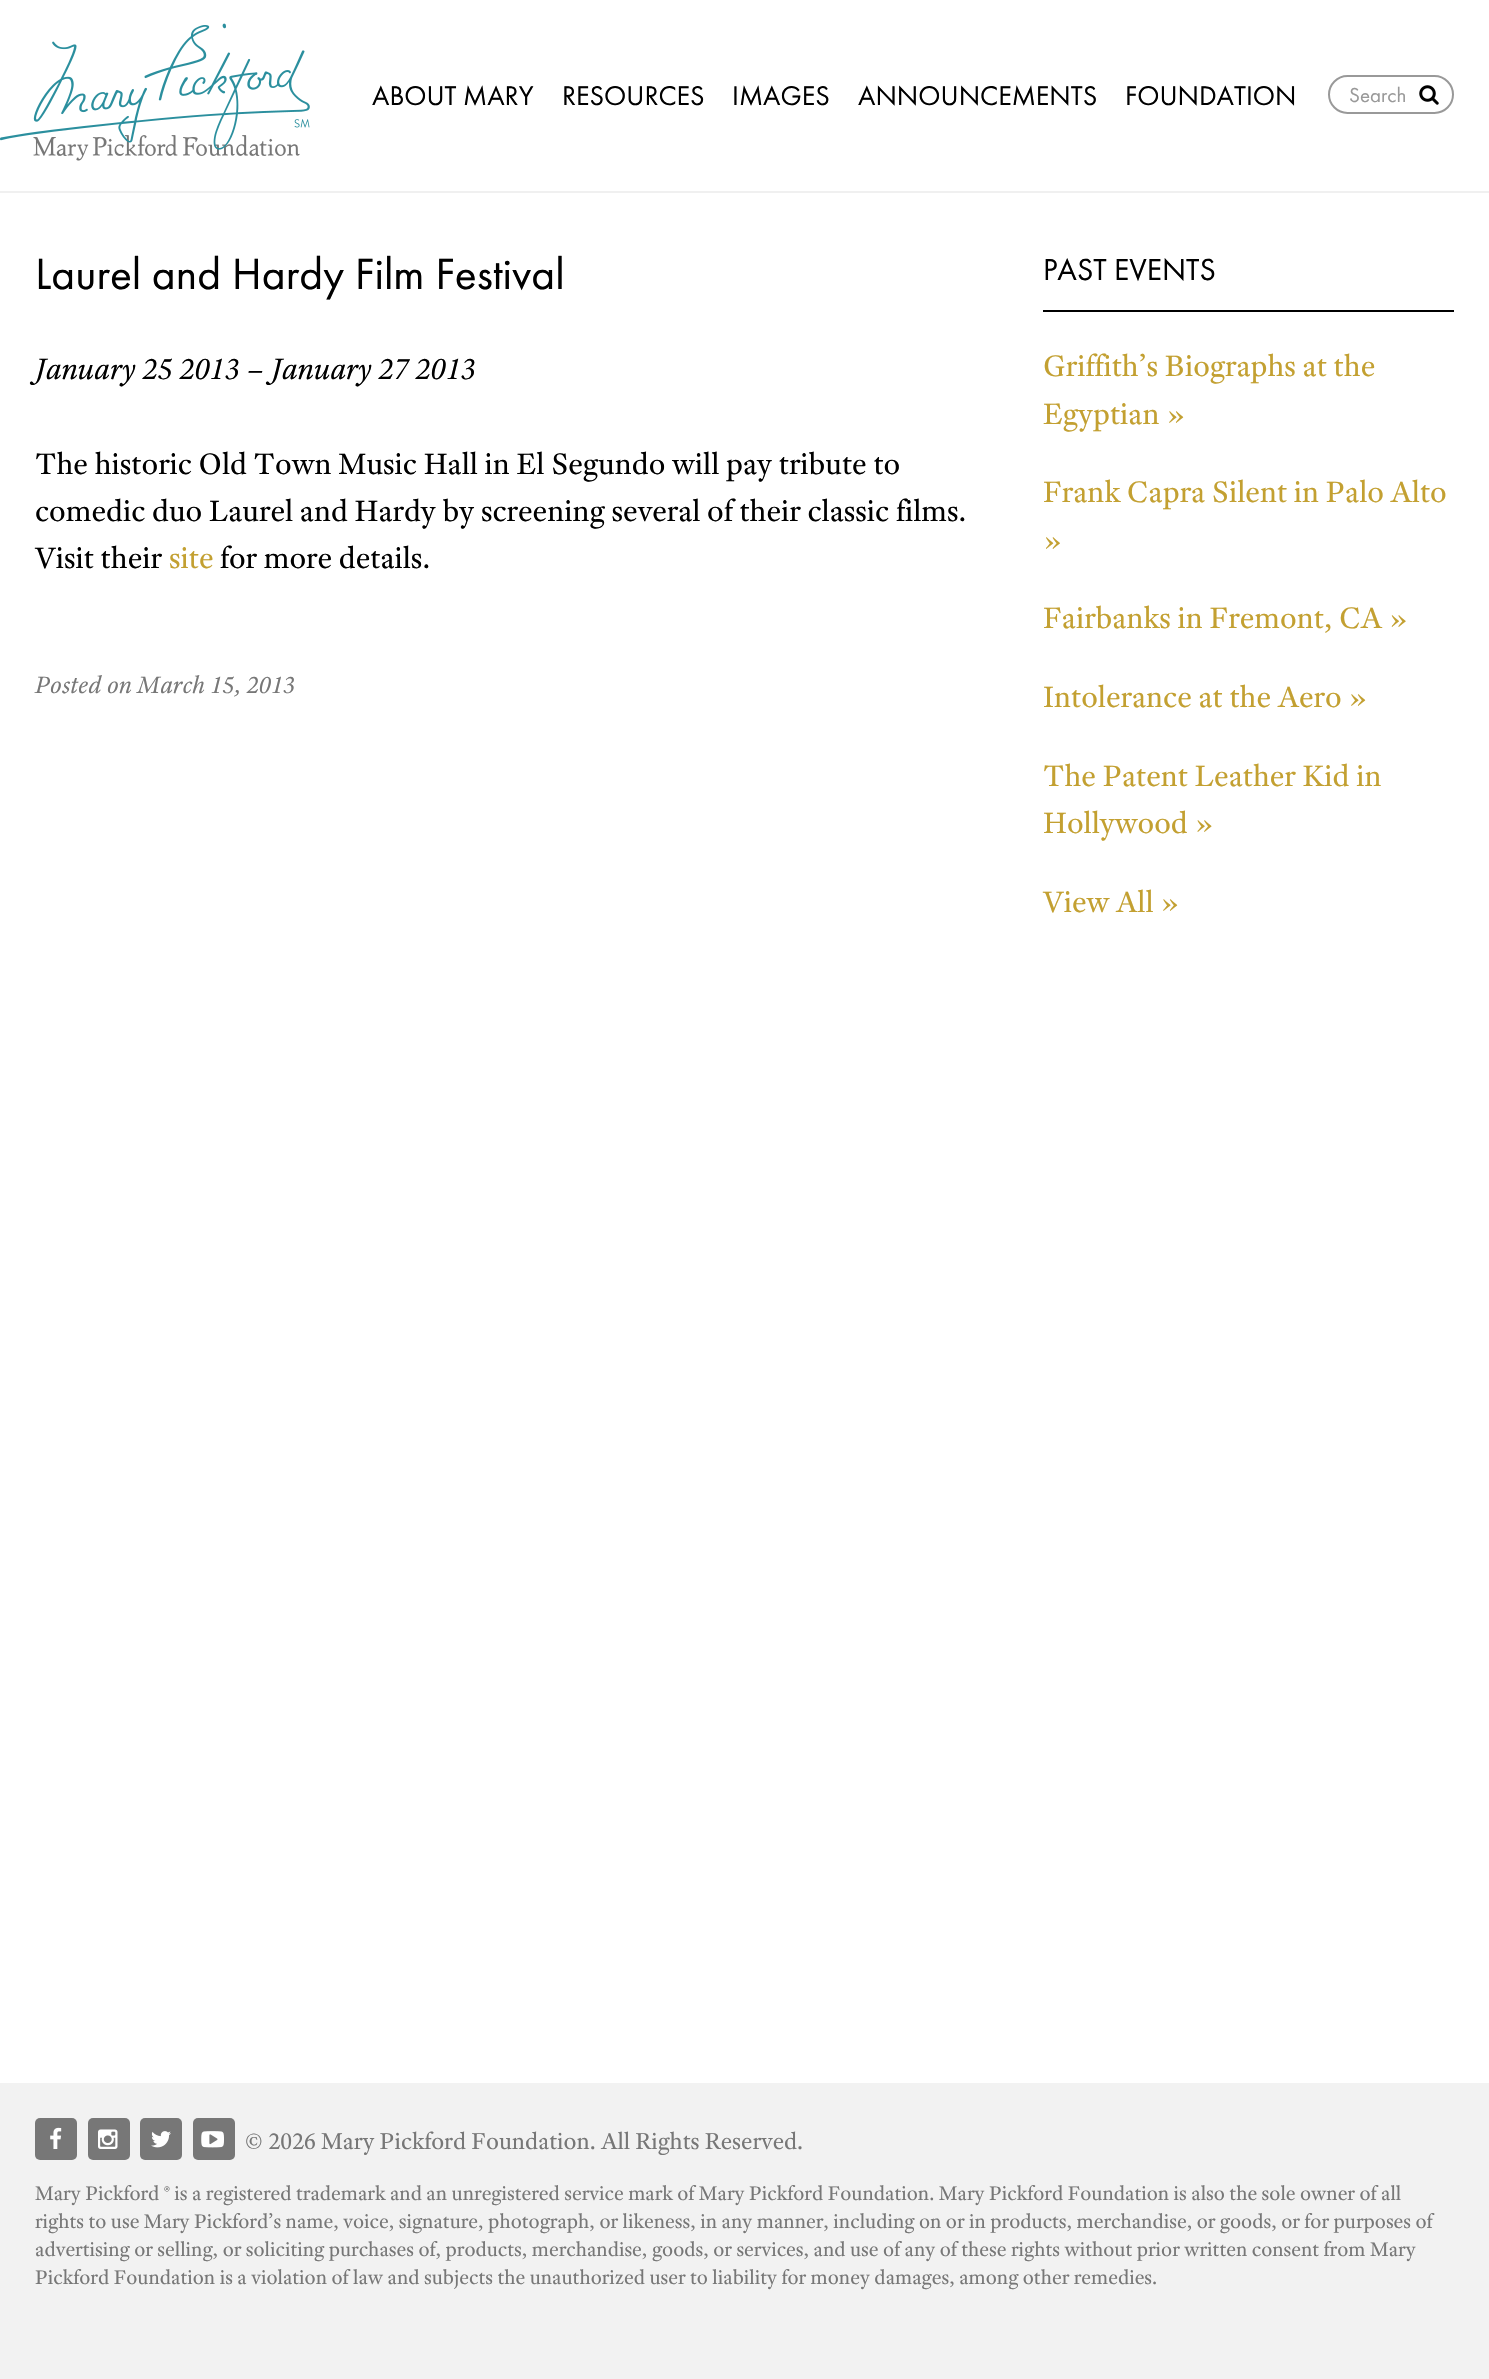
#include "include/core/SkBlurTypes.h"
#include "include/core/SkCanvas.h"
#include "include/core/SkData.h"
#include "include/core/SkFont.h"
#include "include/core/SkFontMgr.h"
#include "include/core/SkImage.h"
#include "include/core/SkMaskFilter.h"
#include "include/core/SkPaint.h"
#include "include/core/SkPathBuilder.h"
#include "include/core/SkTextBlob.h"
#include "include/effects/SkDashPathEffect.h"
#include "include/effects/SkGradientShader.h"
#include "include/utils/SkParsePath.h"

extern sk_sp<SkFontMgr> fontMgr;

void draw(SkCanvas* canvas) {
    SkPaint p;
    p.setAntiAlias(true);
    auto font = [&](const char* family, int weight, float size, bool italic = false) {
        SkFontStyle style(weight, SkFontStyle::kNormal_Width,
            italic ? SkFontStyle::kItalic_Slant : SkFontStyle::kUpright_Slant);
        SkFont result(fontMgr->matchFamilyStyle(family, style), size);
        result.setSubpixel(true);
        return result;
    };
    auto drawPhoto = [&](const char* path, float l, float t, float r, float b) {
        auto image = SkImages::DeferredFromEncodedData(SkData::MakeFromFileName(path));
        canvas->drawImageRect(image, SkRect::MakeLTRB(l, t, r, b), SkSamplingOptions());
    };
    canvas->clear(0xFFFFFFFF);
    p.setColor(0xFFF0F0F0);
    canvas->drawRect(SkRect::MakeLTRB(0, 191, 1489, 193), p);
    drawPhoto("media/2.png", 33, 135, 300, 161);
    drawPhoto("media/1.png", 0, 23, 310, 150);
    auto font1 = font("Futura PT", 400, 28);
    p.setColor(0xFF000000);
    {
        const struct { const char* s; float x, y; } items[] = {
            {"ABOUT MARY", 372, 105},
            {"RESOURCES", 562, 105},
            {"IMAGES", 732, 105},
            {"ANNOUNCEMENTS", 858, 105},
            {"FOUNDATION", 1125, 105},
        };
        for (auto [s, x, y] : items) {
            canvas->drawString(s, x, y, font1, p);
        }
    }
    p.setStyle(SkPaint::kStroke_Style);
    p.setStrokeWidth(2);
    p.setColor(0xFF999999);
    canvas->drawRoundRect(SkRect::MakeLTRB(1329, 76, 1453, 113), 18.5f, 18.5f, p);
    auto font2 = font("Futura PT", 400, 21);
    p.setStyle(SkPaint::kFill_Style);
    canvas->drawString("Search", 1349, 102, font2, p);
    drawPhoto("media/3.png", 1419, 85, 1439, 105);
    auto font3 = font("Futura PT", 400, 45.5f);
    p.setColor(0xFF000000);
    canvas->drawString("Laurel and Hardy Film Festival", 35, 289, font3, p);
    auto font4 = font("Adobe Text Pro", 400, 31.5f, true);
    canvas->drawString("January 25 2013 – January 27 2013", 35, 379, font4, p);
    auto font5 = font("Adobe Text Pro", 400, 31.5f);
    {
        const struct { const char* s; float x, y; } items[] = {
            {"The historic Old Town Music Hall in El Segundo will pay tribute to", 35, 474},
            {"comedic duo Laurel and Hardy by screening several of their classic films.", 35, 521},
            {"Visit their", 35, 568},
        };
        for (auto [s, x, y] : items) {
            canvas->drawString(s, x, y, font5, p);
        }
    }
    p.setColor(0xFFC3A031);
    canvas->drawString("site", 169, 568, font5, p);
    p.setColor(0xFF000000);
    canvas->drawString("for more details.", 220, 568, font5, p);
    auto font6 = font("Adobe Text Pro", 400, 25.25f, true);
    p.setColor(0xFF777777);
    canvas->drawString("Posted on March 15, 2013", 35, 693, font6, p);
    p.setColor(0xFF000000);
    canvas->drawRect(SkRect::MakeLTRB(1043, 310, 1454, 312), p);
    auto font7 = font("Futura PT", 400, 31.5f);
    canvas->drawString("PAST EVENTS", 1043, 280, font7, p);
    p.setColor(0xFFC3A031);
    {
        const struct { const char* s; float x, y; } items[] = {
            {"Griffith’s Biographs at the", 1043, 376},
            {"Egyptian »", 1043, 424},
            {"Frank Capra Silent in Palo Alto", 1043, 502},
            {"»", 1043, 550},
            {"Fairbanks in Fremont, CA »", 1043, 628},
            {"Intolerance at the Aero »", 1043, 707},
            {"The Patent Leather Kid in", 1043, 786},
            {"Hollywood »", 1043, 833},
            {"View All »", 1043, 912},
        };
        for (auto [s, x, y] : items) {
            canvas->drawString(s, x, y, font5, p);
        }
    }
    p.setColor(0xFFF2F2F2);
    canvas->drawRect(SkRect::MakeLTRB(0, 2083, 1489, 2379), p);
    p.setColor(0xFF777777);
    canvas->drawRoundRect(SkRect::MakeLTRB(35, 2118, 77, 2160), 5, 5, p);
    drawPhoto("media/4.png", 50, 2127, 62, 2149);
    canvas->drawRoundRect(SkRect::MakeLTRB(88, 2118, 130, 2160), 5, 5, p);
    drawPhoto("media/5.png", 98, 2129, 118, 2149);
    canvas->drawRoundRect(SkRect::MakeLTRB(140, 2118, 182, 2160), 5, 5, p);
    drawPhoto("media/6.png", 151, 2131, 171, 2148);
    canvas->drawRoundRect(SkRect::MakeLTRB(193, 2118, 235, 2160), 5, 5, p);
    drawPhoto("media/7.png", 201, 2131, 224, 2148);
    auto font8 = font("Adobe Text Pro", 400, 24.5f);
    canvas->drawString("© 2026 Mary Pickford Foundation. All Rights Reserved.", 245, 2149, font8, p);
    auto font9 = font("Adobe Text Pro", 400, 21);
    {
        const struct { const char* s; float x, y; } items[] = {
            {"Mary Pickford ® is a registered trademark and an unregistered service mark of Mary Pickford Foundation. Mary Pickford Foundation is also the sole owner of all", 35, 2200},
            {"rights to use Mary Pickford’s name, voice, signature, photograph, or likeness, in any manner, including on or in products, merchandise, or goods, or for purposes of", 35, 2228},
            {"advertising or selling, or soliciting purchases of, products, merchandise, goods, or services, and use of any of these rights without prior written consent from Mary", 35, 2256},
            {"Pickford Foundation is a violation of law and subjects the unauthorized user to liability for money damages, among other remedies.", 35, 2284},
        };
        for (auto [s, x, y] : items) {
            canvas->drawString(s, x, y, font9, p);
        }
    }
}
